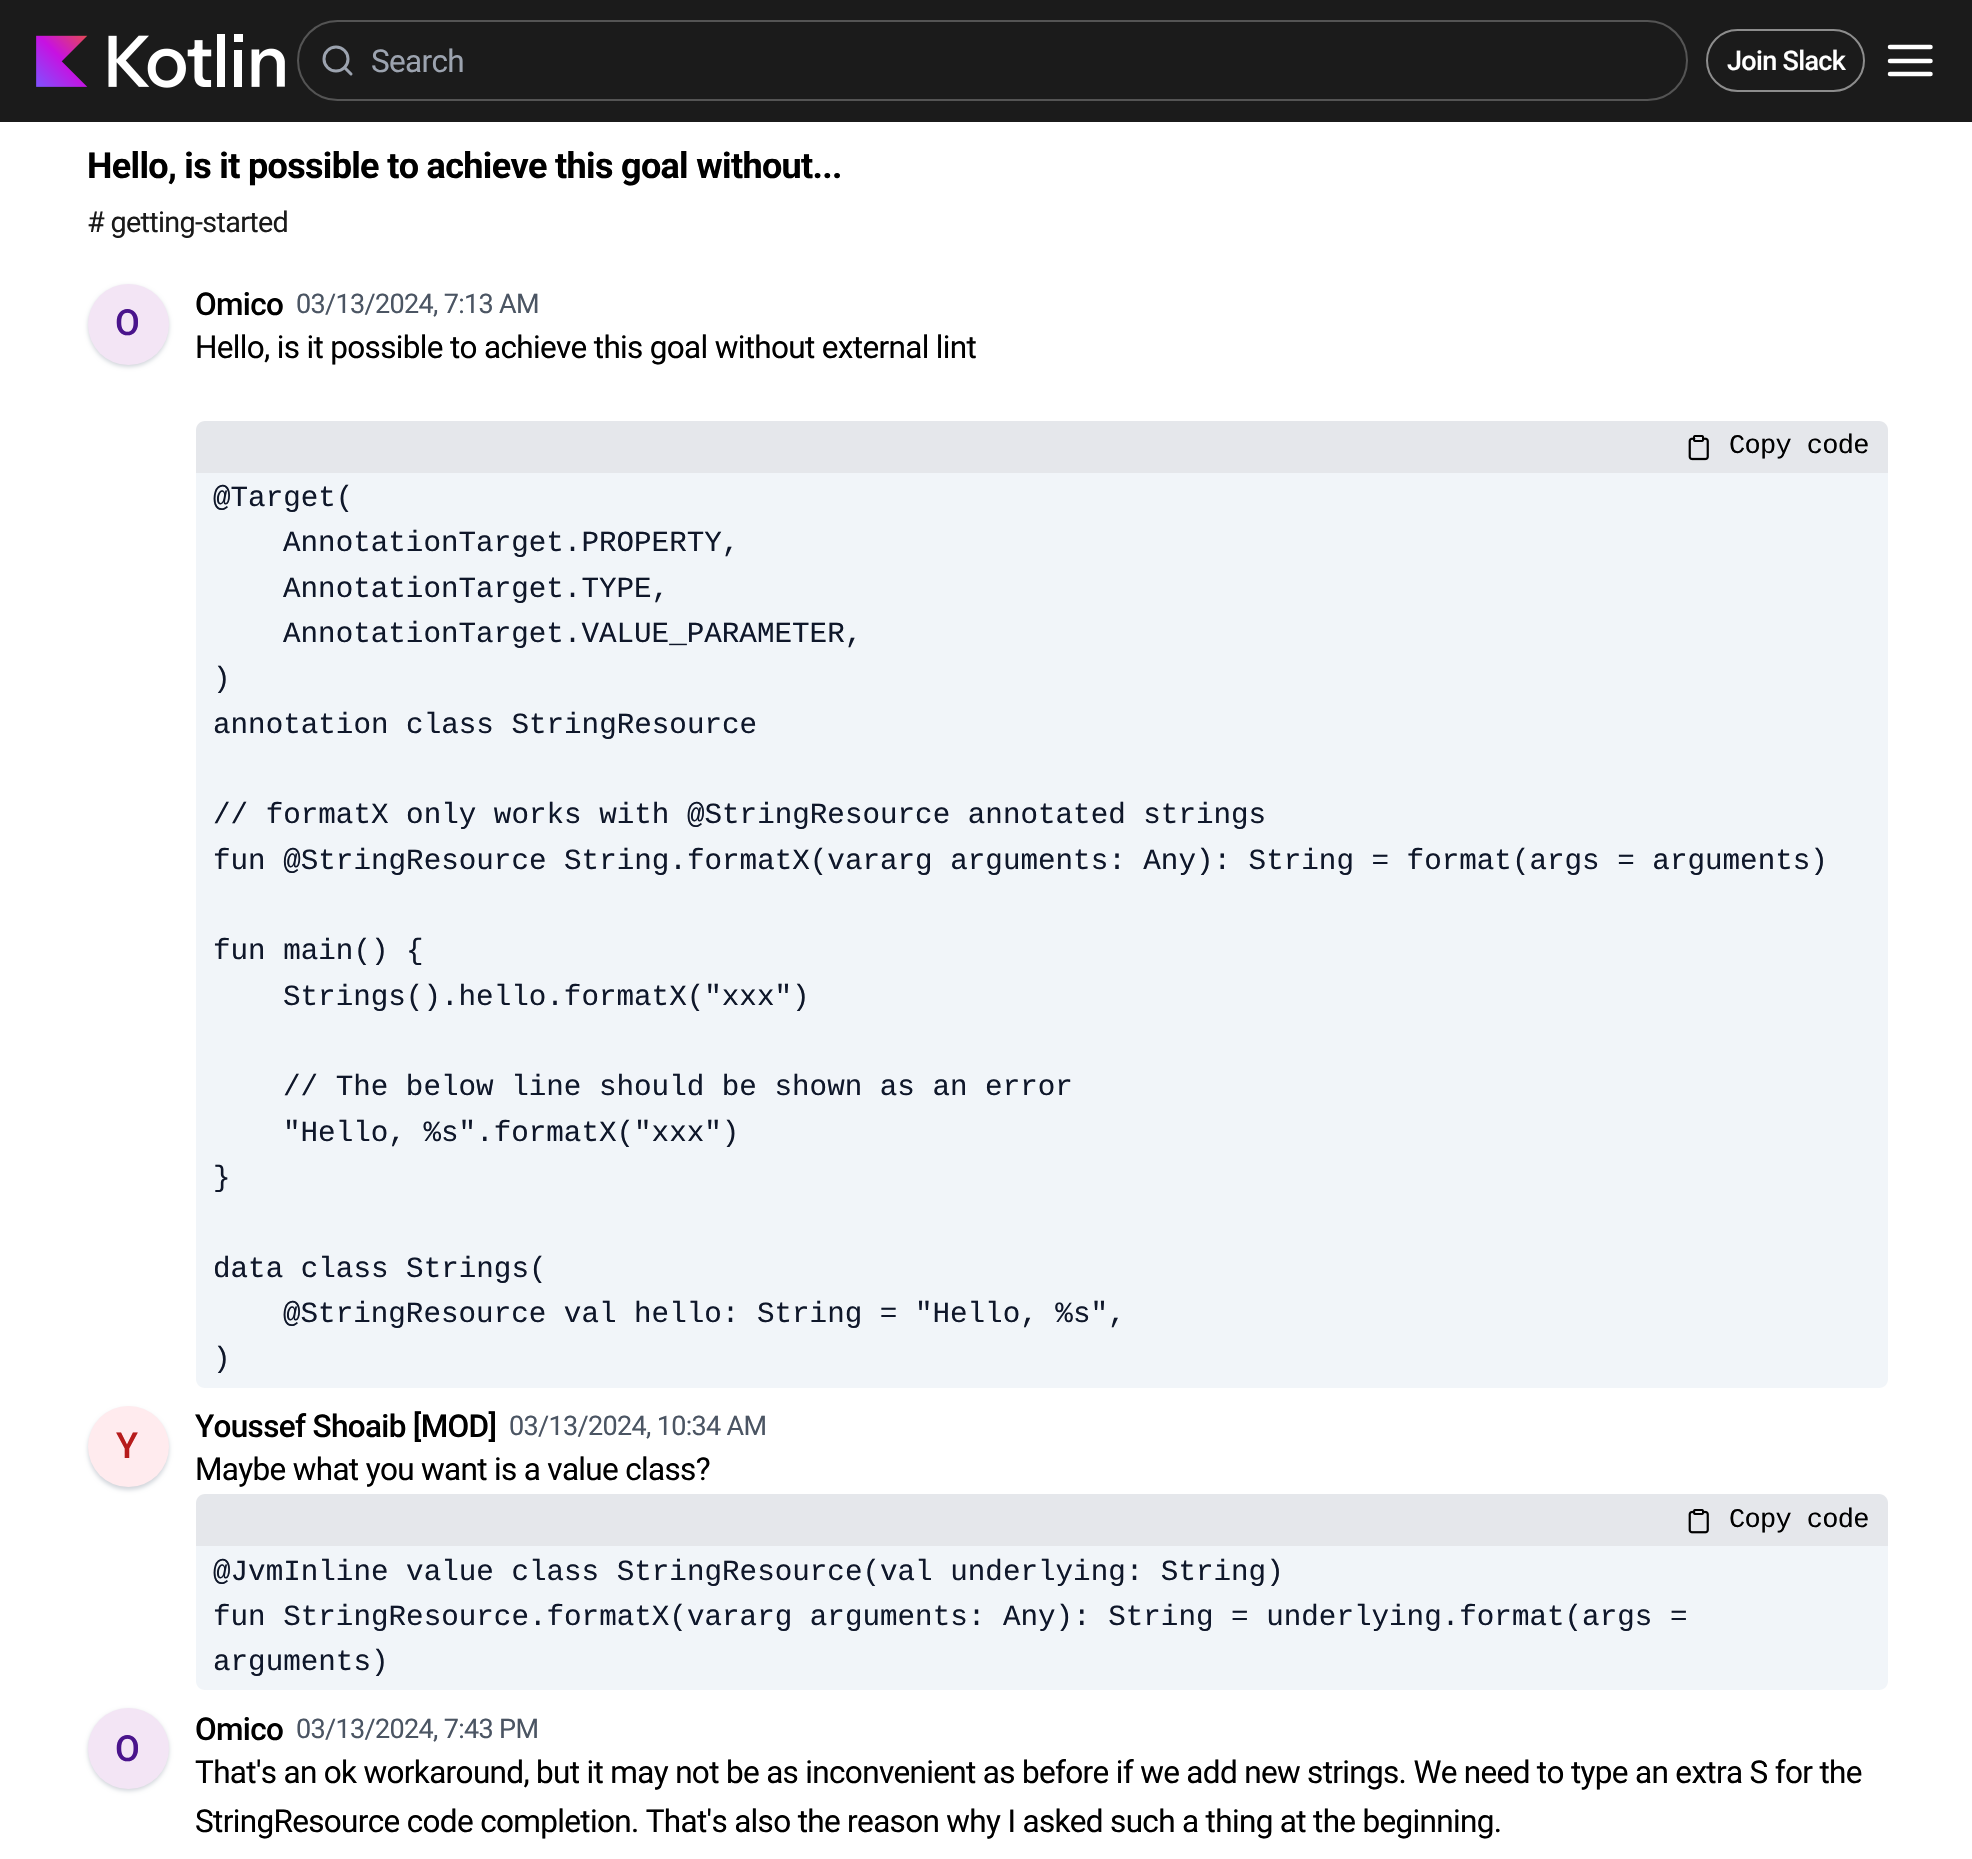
#include "include/core/SkBlurTypes.h"
#include "include/core/SkCanvas.h"
#include "include/core/SkData.h"
#include "include/core/SkFont.h"
#include "include/core/SkFontMgr.h"
#include "include/core/SkImage.h"
#include "include/core/SkMaskFilter.h"
#include "include/core/SkPaint.h"
#include "include/core/SkPathBuilder.h"
#include "include/core/SkTextBlob.h"
#include "include/effects/SkDashPathEffect.h"
#include "include/effects/SkGradientShader.h"
#include "include/utils/SkParsePath.h"

extern sk_sp<SkFontMgr> fontMgr;

void draw(SkCanvas* canvas) {
    SkPaint p;
    p.setAntiAlias(true);
    auto font = [&](const char* family, int weight, float size, bool italic = false) {
        SkFontStyle style(weight, SkFontStyle::kNormal_Width,
            italic ? SkFontStyle::kItalic_Slant : SkFontStyle::kUpright_Slant);
        SkFont result(fontMgr->matchFamilyStyle(family, style), size);
        result.setSubpixel(true);
        return result;
    };
    auto drawTracked = [&](const char* s, float x, float y, const SkFont& font, const SkPaint& ink, float letter, float word) {
        std::vector<SkGlyphID> glyphs(font.countText(s, strlen(s), SkTextEncoding::kUTF8));
        std::vector<float> xs(glyphs.size());
        font.textToGlyphs(s, strlen(s), SkTextEncoding::kUTF8, glyphs);
        font.getXPos(glyphs, xs, x);
        float extra = 0;
        for (size_t i = 0; i < glyphs.size(); i++) {
            xs[i] += extra;
            extra += letter + word * (glyphs[i] == font.unicharToGlyph(' '));
        }
        canvas->drawTextBlob(SkTextBlob::MakeFromPosHGlyphs(glyphs, xs, y, font), 0, 0, ink);
    };
    auto drawPhoto = [&](const char* path, float l, float t, float r, float b) {
        auto image = SkImages::DeferredFromEncodedData(SkData::MakeFromFileName(path));
        canvas->drawImageRect(image, SkRect::MakeLTRB(l, t, r, b), SkSamplingOptions());
    };
    canvas->clear(0xFFFFFFFF);
    p.setColor(0xFF1B1B1B);
    canvas->drawRect(SkRect::MakeLTRB(0, 0, 1972, 122), p);
    drawPhoto("media/1.png", 36, 34, 285, 88);
    p.setStyle(SkPaint::kStroke_Style);
    p.setStrokeWidth(2);
    p.setColor(0xFF545454);
    canvas->drawRoundRect(SkRect::MakeLTRB(298, 21, 1687, 100), 39.5f, 39.5f, p);
    p.setStrokeWidth(3);
    p.setColor(0xFF9CA3AF);
    canvas->drawCircle(336, 59, 12, p);
    p.setStrokeCap(SkPaint::kRound_Cap);
    p.setStrokeJoin(SkPaint::kRound_Join);
    canvas->drawPath(SkPathBuilder().moveTo(351, 74).lineTo(344.5f, 67.5f).detach(), p);
    auto font1 = font("Roboto", 400, 31.5f);
    p.setStyle(SkPaint::kFill_Style);
    drawTracked("Search", 371, 72, font1, p, -0.67f, 0);
    p.setStyle(SkPaint::kStroke_Style);
    p.setStrokeWidth(2);
    p.setStrokeCap(SkPaint::kButt_Cap);
    p.setStrokeJoin(SkPaint::kMiter_Join);
    p.setColor(0xFF8D8D8D);
    canvas->drawRoundRect(SkRect::MakeLTRB(1707, 30, 1864, 91), 30.5f, 30.5f, p);
    auto font2 = font("Roboto", 500, 27);
    p.setStyle(SkPaint::kFill_Style);
    p.setColor(0xFFFFFFFF);
    drawTracked("Join Slack", 1727, 70, font2, p, -0.67f, 0);
    p.setStyle(SkPaint::kStroke_Style);
    p.setStrokeWidth(4.5f);
    p.setStrokeCap(SkPaint::kRound_Cap);
    p.setStrokeJoin(SkPaint::kRound_Join);
    canvas->drawPath(SkPathBuilder().moveTo(1890, 61).lineTo(1930.5f, 61).moveTo(1890, 47).lineTo(1930.5f, 47).moveTo(1890, 74).lineTo(1930.5f, 74).detach(), p);
    auto font3 = font("Roboto", 700, 36);
    p.setStyle(SkPaint::kFill_Style);
    p.setColor(0xFF000000);
    drawTracked("Hello, is it possible to achieve this goal without...", 87, 178, font3, p, -0.67f, 0);
    auto font4 = font("Roboto", 400, 28.75f);
    p.setColor(0xFF1A1A1A);
    drawTracked("# getting-started", 87, 232, font4, p, -0.67f, 0);
    p.setColor(0xFFD1D5DB);
    p.setMaskFilter(SkMaskFilter::MakeBlur(kNormal_SkBlurStyle, 2));
    canvas->drawRoundRect(SkRect::MakeLTRB(88, 286, 169, 367), 40.5f, 40.5f, p);
    p.setMaskFilter(nullptr);
    p.setColor(0xFFF3E5F5);
    canvas->drawCircle(128.5f, 324.5f, 40.5f, p);
    auto font5 = font("Roboto", 500, 36);
    p.setColor(0xFF4A148C);
    drawTracked("O", 115, 335, font5, p, -0.67f, 0);
    auto font6 = font("Roboto", 500, 31.5f);
    p.setColor(0xFF000000);
    drawTracked("Omico", 195, 315, font6, p, -0.67f, 0);
    auto font7 = font("Roboto", 400, 27);
    p.setColor(0xFF4B5563);
    drawTracked("03/13/2024, 7:13 AM", 296, 313, font7, p, -0.67f, 0);
    p.setColor(0xFF000000);
    drawTracked("Hello, is it possible to achieve this goal without external lint", 195, 358, font1, p, -0.67f, 0);
    p.setColor(0xFFE5E7EB);
    canvas->drawPath(SkPathBuilder().moveTo(205, 421).lineTo(1879, 421).cubicTo(1884, 421, 1888, 425, 1888, 430).lineTo(1888, 473).lineTo(196, 473).lineTo(196, 430).cubicTo(196, 425, 200, 421, 205, 421).close().detach(), p);
    drawPhoto("media/2.png", 1688, 435, 1709, 461);
    auto font8 = font("Liberation Mono", 400, 27);
    p.setColor(0xFF000000);
    drawTracked("Copy code", 1729, 453, font8, p, -0.67f, 0);
    p.setColor(0xFFF1F5F9);
    canvas->drawPath(SkPathBuilder().moveTo(196, 473).lineTo(1888, 473).lineTo(1888, 1379).cubicTo(1888, 1384, 1884, 1388, 1879, 1388).lineTo(205, 1388).cubicTo(200, 1388, 196, 1384, 196, 1379).close().detach(), p);
    auto font9 = font("Liberation Mono", 400, 29.25f);
    p.setColor(0xFF0F172A);
    {
        const struct { const char* s; float x, y; } items[] = {
            {"@Target(", 213, 506},
            {"AnnotationTarget.PROPERTY,", 283, 551},
            {"AnnotationTarget.TYPE,", 283, 597},
            {"AnnotationTarget.VALUE_PARAMETER,", 283, 642},
            {")", 213, 687},
            {"annotation class StringResource", 213, 733},
            {"// formatX only works with @StringResource annotated strings", 213, 823},
            {"fun @StringResource String.formatX(vararg arguments: Any): String = format(args = arguments)", 213, 869},
            {"fun main() {", 213, 959},
            {"Strings().hello.formatX(\"xxx\")", 283, 1005},
            {"// The below line should be shown as an error", 283, 1095},
            {"\"Hello, %s\".formatX(\"xxx\")", 283, 1141},
            {"}", 213, 1186},
            {"data class Strings(", 213, 1277},
            {"@StringResource val hello: String = \"Hello, %s\",", 283, 1322},
            {")", 213, 1367},
        };
        for (auto [s, x, y] : items) {
            canvas->drawString(s, x, y, font9, p);
        }
    }
    p.setColor(0xFFD1D5DB);
    p.setMaskFilter(SkMaskFilter::MakeBlur(kNormal_SkBlurStyle, 2));
    canvas->drawRoundRect(SkRect::MakeLTRB(88, 1409, 169, 1490), 40.5f, 40.5f, p);
    p.setMaskFilter(nullptr);
    p.setColor(0xFFFFEBEE);
    canvas->drawCircle(128.5f, 1446.5f, 40.5f, p);
    p.setColor(0xFFB71C1C);
    drawTracked("Y", 116, 1458, font5, p, -0.67f, 0);
    p.setColor(0xFF000000);
    drawTracked("Youssef Shoaib [MOD]", 195, 1437, font6, p, -0.67f, 0);
    p.setColor(0xFF4B5563);
    drawTracked("03/13/2024, 10:34 AM", 509, 1435, font7, p, -0.67f, 0);
    p.setColor(0xFF000000);
    drawTracked("Maybe what you want is a value class?", 195, 1480, font1, p, -0.67f, 0);
    p.setColor(0xFFE5E7EB);
    canvas->drawPath(SkPathBuilder().moveTo(205, 1494).lineTo(1879, 1494).cubicTo(1884, 1494, 1888, 1498, 1888, 1503).lineTo(1888, 1546).lineTo(196, 1546).lineTo(196, 1503).cubicTo(196, 1498, 200, 1494, 205, 1494).close().detach(), p);
    drawPhoto("media/3.png", 1688, 1509, 1709, 1534);
    p.setColor(0xFF000000);
    drawTracked("Copy code", 1729, 1527, font8, p, -0.67f, 0);
    p.setColor(0xFFF1F5F9);
    canvas->drawPath(SkPathBuilder().moveTo(196, 1546).lineTo(1888, 1546).lineTo(1888, 1681).cubicTo(1888, 1686, 1884, 1690, 1879, 1690).lineTo(205, 1690).cubicTo(200, 1690, 196, 1686, 196, 1681).close().detach(), p);
    p.setColor(0xFF0F172A);
    {
        const struct { const char* s; float x, y; } items[] = {
            {"@JvmInline value class StringResource(val underlying: String)", 213, 1580},
            {"fun StringResource.formatX(vararg arguments: Any): String = underlying.format(args =", 213, 1625},
            {"arguments)", 213, 1670},
        };
        for (auto [s, x, y] : items) {
            canvas->drawString(s, x, y, font9, p);
        }
    }
    p.setColor(0xFFD1D5DB);
    p.setMaskFilter(SkMaskFilter::MakeBlur(kNormal_SkBlurStyle, 2));
    canvas->drawRoundRect(SkRect::MakeLTRB(88, 1710, 169, 1791), 40.5f, 40.5f, p);
    p.setMaskFilter(nullptr);
    p.setColor(0xFFF3E5F5);
    canvas->drawCircle(128.5f, 1748.5f, 40.5f, p);
    p.setColor(0xFF4A148C);
    drawTracked("O", 115, 1761, font5, p, -0.67f, 0);
    p.setColor(0xFF000000);
    drawTracked("Omico", 195, 1740, font6, p, -0.67f, 0);
    p.setColor(0xFF4B5563);
    drawTracked("03/13/2024, 7:43 PM", 296, 1738, font7, p, -0.67f, 0);
    p.setColor(0xFF000000);
    drawTracked("That's an ok workaround, but it may not be as inconvenient as before if we add new strings. We need to type an extra S for the", 195, 1783, font1, p, -0.67f, 0);
    drawTracked("StringResource code completion. That's also the reason why I asked such a thing at the beginning.", 195, 1832, font1, p, -0.67f, 0);
}
